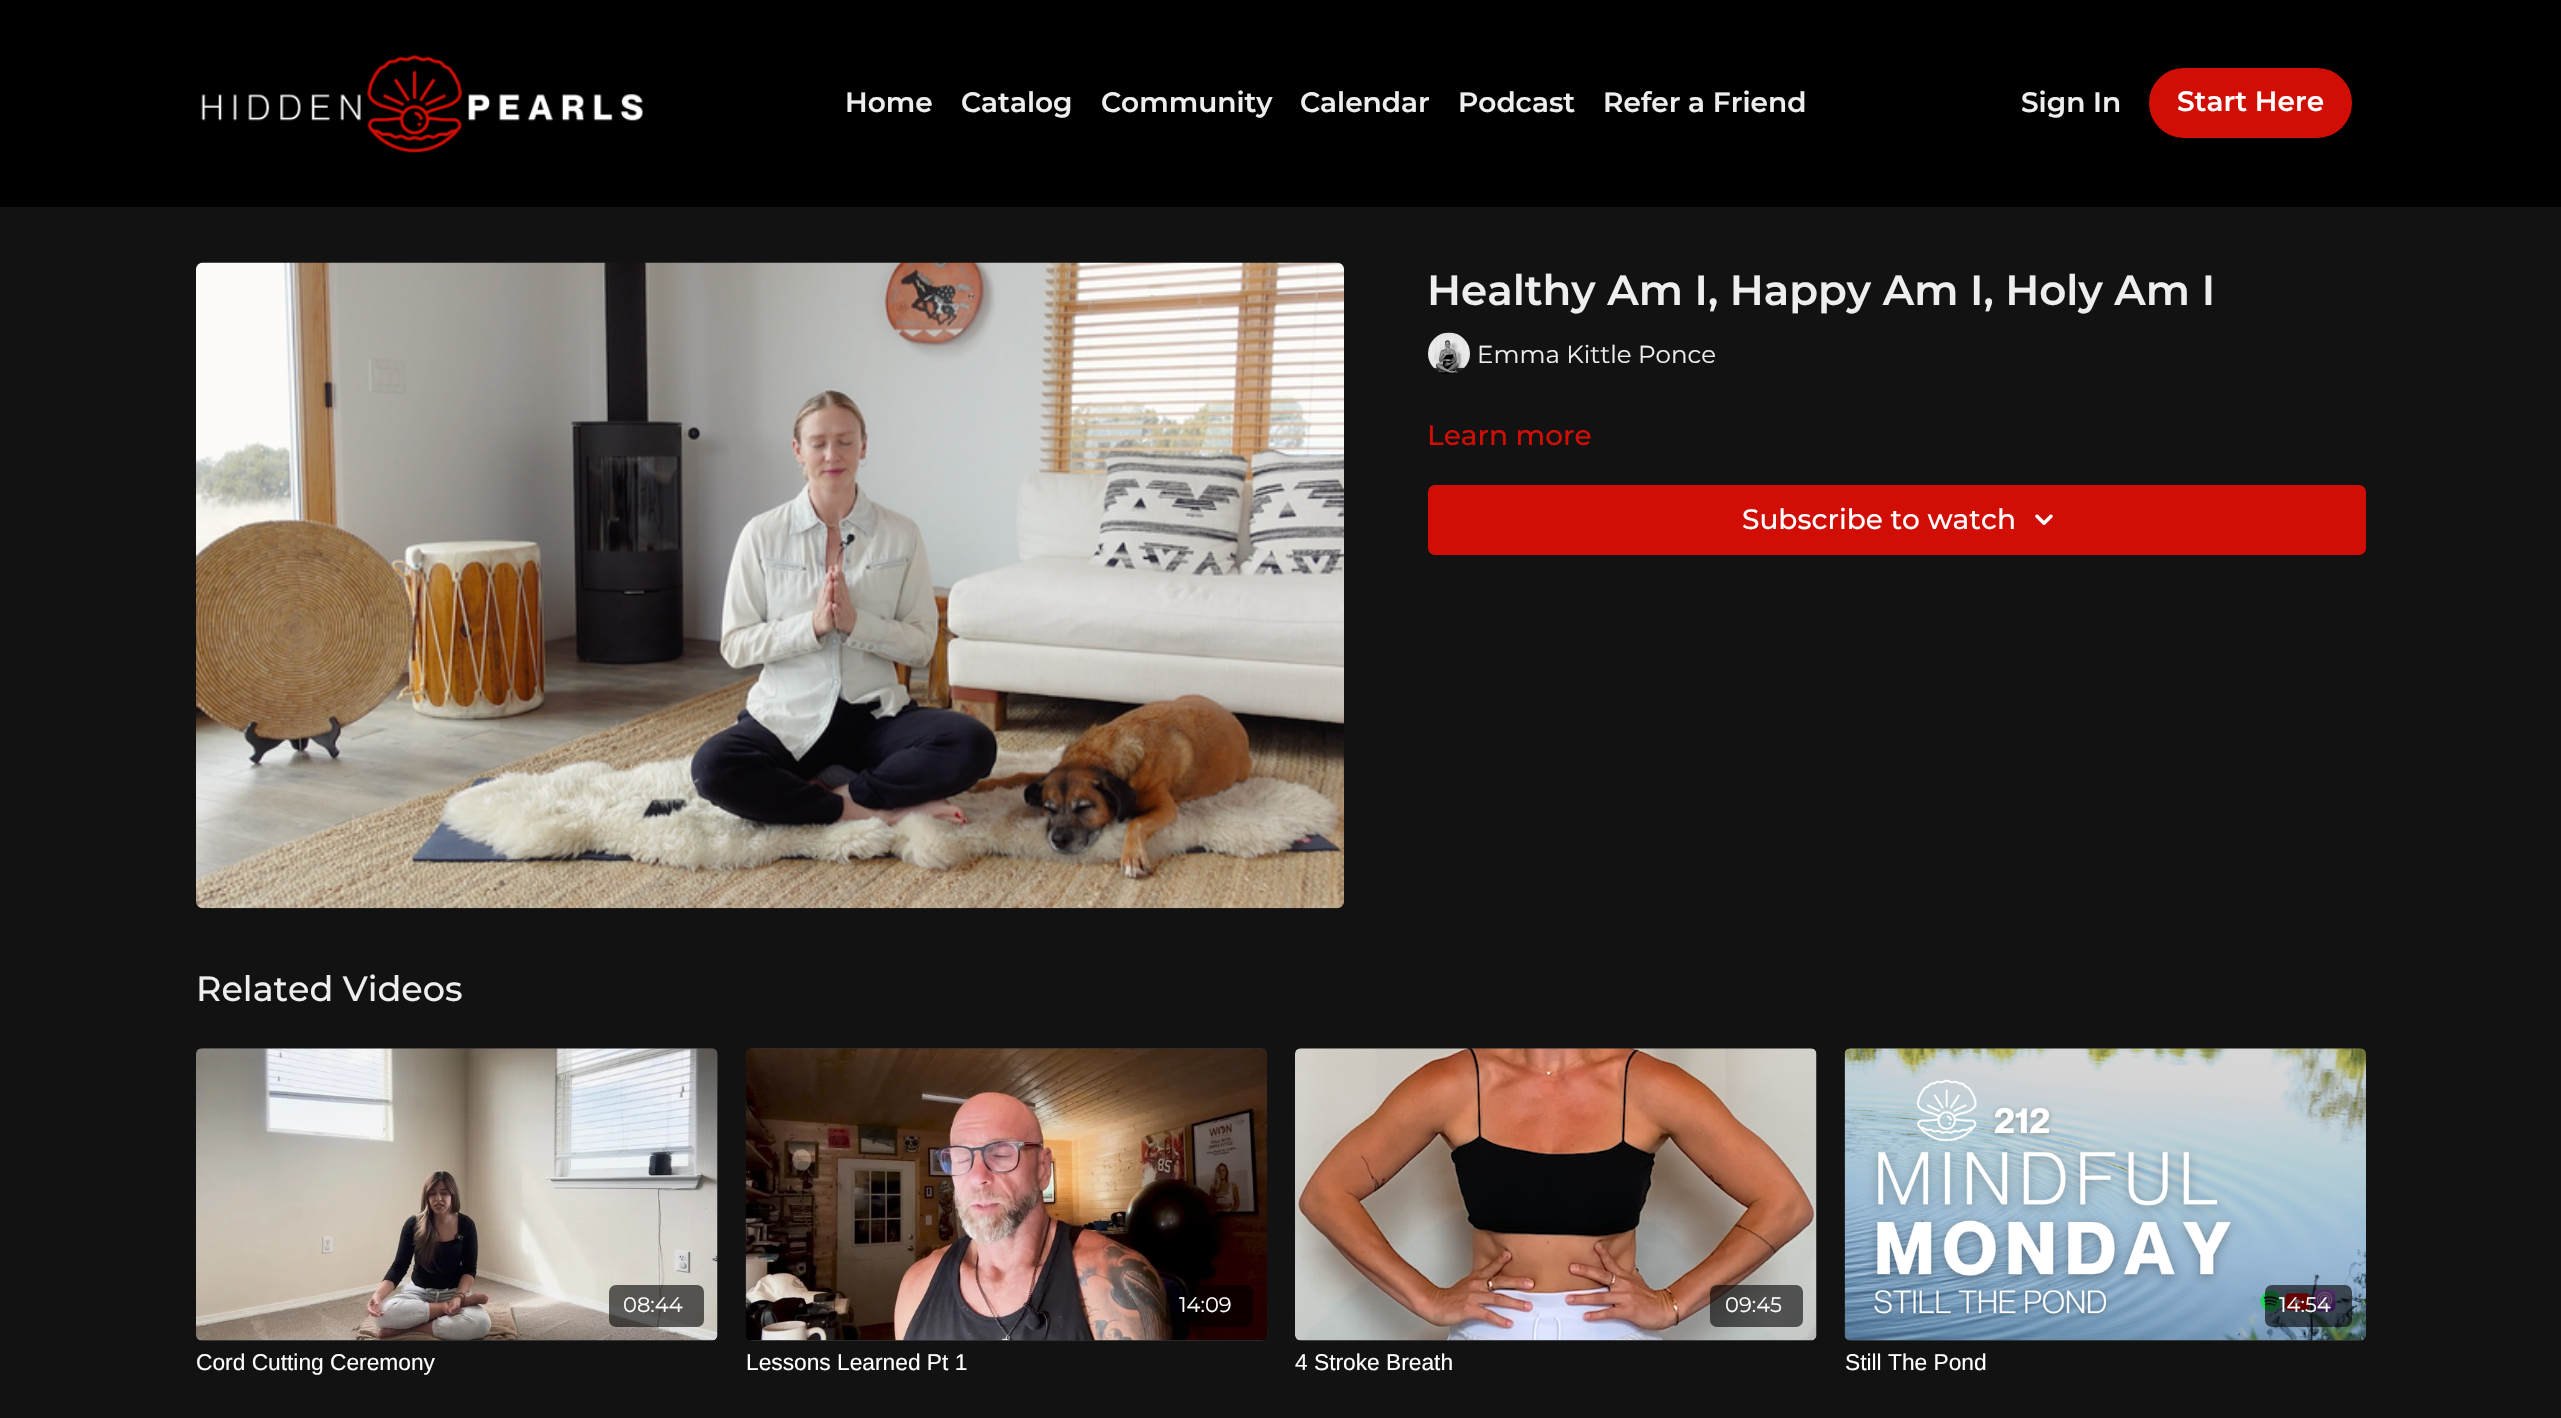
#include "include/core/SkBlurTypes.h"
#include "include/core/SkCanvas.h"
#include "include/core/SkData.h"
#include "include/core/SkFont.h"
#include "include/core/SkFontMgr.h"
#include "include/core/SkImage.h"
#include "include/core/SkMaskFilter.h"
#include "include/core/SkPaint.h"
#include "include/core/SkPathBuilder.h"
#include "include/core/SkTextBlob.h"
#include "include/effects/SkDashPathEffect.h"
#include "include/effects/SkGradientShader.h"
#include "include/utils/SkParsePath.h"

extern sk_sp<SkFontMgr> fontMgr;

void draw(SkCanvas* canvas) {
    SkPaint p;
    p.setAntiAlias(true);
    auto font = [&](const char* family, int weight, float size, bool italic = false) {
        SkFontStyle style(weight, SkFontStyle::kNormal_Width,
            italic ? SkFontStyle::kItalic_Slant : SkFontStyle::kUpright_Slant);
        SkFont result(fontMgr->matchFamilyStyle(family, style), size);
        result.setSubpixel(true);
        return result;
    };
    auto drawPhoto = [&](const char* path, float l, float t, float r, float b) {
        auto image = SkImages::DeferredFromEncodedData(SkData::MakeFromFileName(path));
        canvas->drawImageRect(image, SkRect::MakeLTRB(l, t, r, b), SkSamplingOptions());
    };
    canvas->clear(0xFF121212);
    p.setColor(0xFF000000);
    canvas->drawRect(SkRect::MakeLTRB(0, 0, 2561, 207), p);
    drawPhoto("media/1.png", 201, 54, 644, 153);
    auto font1 = font("Montserrat", 600, 28);
    p.setColor(0xFFEEEEEE);
    {
        const struct { const char* s; float x, y; } items[] = {
            {"Home", 845, 112},
            {"Catalog", 961, 112},
            {"Community", 1101, 112},
            {"Calendar", 1300, 112},
            {"Podcast", 1458, 112},
            {"Refer a Friend", 1603, 112},
            {"Sign In", 2021, 112},
        };
        for (auto [s, x, y] : items) {
            canvas->drawString(s, x, y, font1, p);
        }
    }
    p.setColor(0xFFD10E05);
    canvas->drawRoundRect(SkRect::MakeLTRB(2150, 69, 2351, 137), 34, 34, p);
    p.setStyle(SkPaint::kStroke_Style);
    p.setStrokeWidth(2);
    canvas->drawRoundRect(SkRect::MakeLTRB(2150, 69, 2351, 137), 34, 34, p);
    p.setStyle(SkPaint::kFill_Style);
    p.setColor(0xFFFFFFFF);
    canvas->drawString("Start Here", 2177, 111, font1, p);
    drawPhoto("media/2.png", 196, 262, 1344, 909);
    auto font2 = font("Montserrat", 600, 42);
    p.setColor(0xFFEEEEEE);
    canvas->drawString("Healthy Am I, Happy Am I, Holy Am I", 1427, 305, font2, p);
    drawPhoto("media/3.png", 1428, 332, 1470, 374);
    auto font3 = font("Montserrat", 400, 24.5f);
    canvas->drawString("Emma Kittle Ponce", 1477, 363, font3, p);
    auto font4 = font("Montserrat", 500, 28);
    p.setColor(0xFFD10E05);
    canvas->drawString("Learn more", 1427, 445, font4, p);
    canvas->drawRoundRect(SkRect::MakeLTRB(1428, 485, 2366, 555), 7, 7, p);
    p.setColor(0xFFFFFFFF);
    canvas->drawString("Subscribe to watch", 1742, 529, font4, p);
    drawPhoto("media/4.png", 2035, 514, 2053, 525);
    auto font5 = font("Montserrat", 500, 35);
    p.setColor(0xFFEEEEEE);
    canvas->drawString("Related Videos", 196, 1001, font5, p);
    {
        const SkColor colors[] = {0xFF313131, 0xFF2E2E2E, 0xFF2C2C2C};
        const float stops[] = {0.08f, 0.18f, 0.33f};
        const SkPoint ends[] = {{196, 1194}, {718, 1194}};
        p.setShader(SkGradientShader::MakeLinear(ends, colors, stops, 3, SkTileMode::kClamp));
        p.setAlpha(255);
    }
    canvas->drawRoundRect(SkRect::MakeLTRB(196, 1048, 718, 1341), 7, 7, p);
    drawPhoto("media/5.png", 196, 1048, 718, 1341);
    p.setShader(nullptr);
    p.setColor(0x99000000);
    canvas->drawRoundRect(SkRect::MakeLTRB(609, 1285, 704, 1327), 7, 7, p);
    auto font6 = font("Montserrat", 400, 21);
    p.setColor(0xFFFFFFFF);
    canvas->drawString("08:44", 623, 1312, font6, p);
    auto font7 = font("Liberation Sans", 400, 22.75f);
    canvas->drawString("Cord Cutting Ceremony", 196, 1370, font7, p);
    {
        const SkColor colors[] = {0xFF313131, 0xFF2E2E2E, 0xFF2C2C2C};
        const float stops[] = {0.08f, 0.18f, 0.33f};
        const SkPoint ends[] = {{746, 1194}, {1267, 1194}};
        p.setShader(SkGradientShader::MakeLinear(ends, colors, stops, 3, SkTileMode::kClamp));
        p.setAlpha(255);
    }
    canvas->drawRoundRect(SkRect::MakeLTRB(746, 1048, 1267, 1341), 7, 7, p);
    drawPhoto("media/6.png", 745, 1048, 1267, 1341);
    p.setShader(nullptr);
    p.setColor(0x99000000);
    canvas->drawRoundRect(SkRect::MakeLTRB(1166, 1285, 1253, 1327), 7, 7, p);
    p.setColor(0xFFFFFFFF);
    canvas->drawString("14:09", 1179, 1312, font6, p);
    canvas->drawString("Lessons Learned Pt 1", 746, 1370, font7, p);
    {
        const SkColor colors[] = {0xFF313131, 0xFF2E2E2E, 0xFF2C2C2C};
        const float stops[] = {0.08f, 0.18f, 0.33f};
        const SkPoint ends[] = {{1295, 1194}, {1817, 1194}};
        p.setShader(SkGradientShader::MakeLinear(ends, colors, stops, 3, SkTileMode::kClamp));
        p.setAlpha(255);
    }
    canvas->drawRoundRect(SkRect::MakeLTRB(1295, 1048, 1817, 1341), 7, 7, p);
    drawPhoto("media/7.png", 1295, 1048, 1817, 1341);
    p.setShader(nullptr);
    p.setColor(0x99000000);
    canvas->drawRoundRect(SkRect::MakeLTRB(1710, 1285, 1803, 1327), 7, 7, p);
    p.setColor(0xFFFFFFFF);
    canvas->drawString("09:45", 1725, 1312, font6, p);
    canvas->drawString("4 Stroke Breath", 1295, 1370, font7, p);
    {
        const SkColor colors[] = {0xFF313131, 0xFF2E2E2E, 0xFF2C2C2C};
        const float stops[] = {0.08f, 0.18f, 0.33f};
        const SkPoint ends[] = {{1845, 1194}, {2366, 1194}};
        p.setShader(SkGradientShader::MakeLinear(ends, colors, stops, 3, SkTileMode::kClamp));
        p.setAlpha(255);
    }
    canvas->drawRoundRect(SkRect::MakeLTRB(1845, 1048, 2366, 1341), 7, 7, p);
    drawPhoto("media/8.png", 1844, 1048, 2366, 1341);
    p.setShader(nullptr);
    p.setColor(0x99000000);
    canvas->drawRoundRect(SkRect::MakeLTRB(2265, 1285, 2352, 1327), 7, 7, p);
    p.setColor(0xFFFFFFFF);
    canvas->drawString("14:54", 2279, 1312, font6, p);
    canvas->drawString("Still The Pond", 1845, 1370, font7, p);
}
